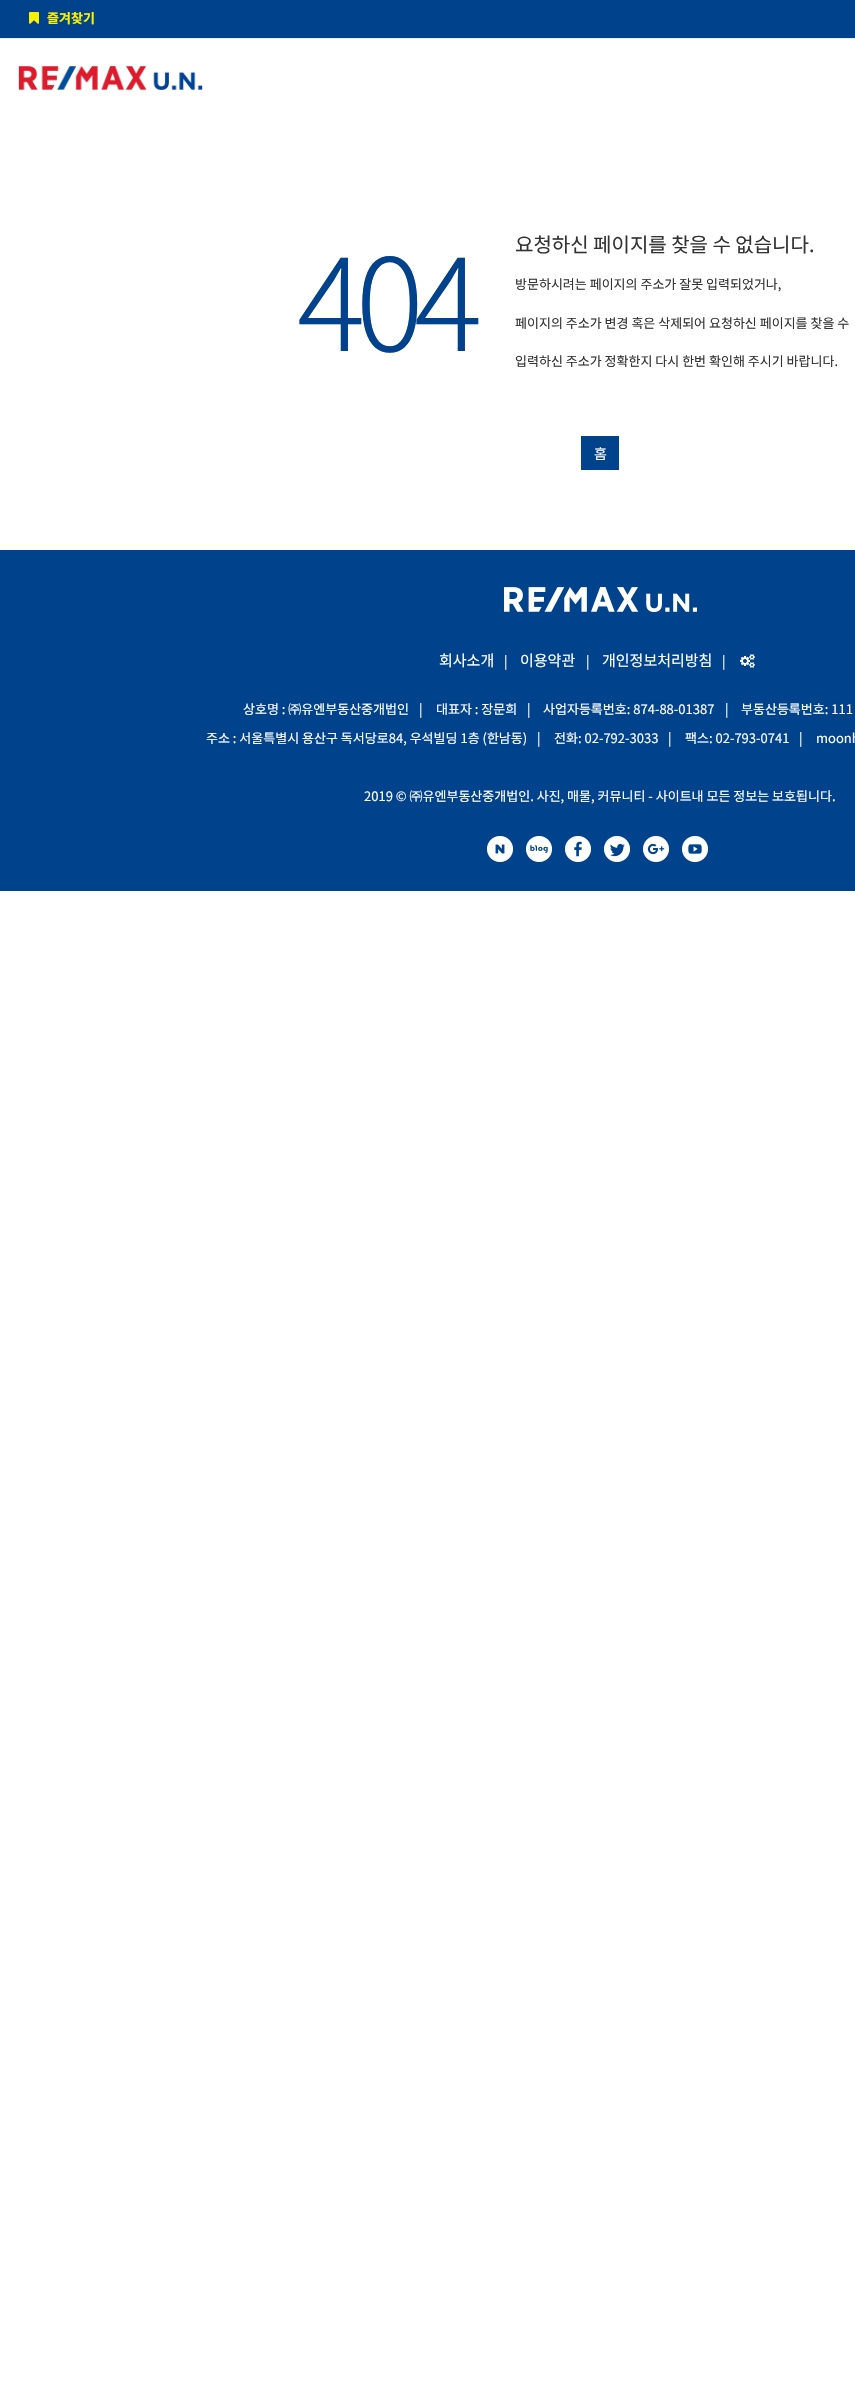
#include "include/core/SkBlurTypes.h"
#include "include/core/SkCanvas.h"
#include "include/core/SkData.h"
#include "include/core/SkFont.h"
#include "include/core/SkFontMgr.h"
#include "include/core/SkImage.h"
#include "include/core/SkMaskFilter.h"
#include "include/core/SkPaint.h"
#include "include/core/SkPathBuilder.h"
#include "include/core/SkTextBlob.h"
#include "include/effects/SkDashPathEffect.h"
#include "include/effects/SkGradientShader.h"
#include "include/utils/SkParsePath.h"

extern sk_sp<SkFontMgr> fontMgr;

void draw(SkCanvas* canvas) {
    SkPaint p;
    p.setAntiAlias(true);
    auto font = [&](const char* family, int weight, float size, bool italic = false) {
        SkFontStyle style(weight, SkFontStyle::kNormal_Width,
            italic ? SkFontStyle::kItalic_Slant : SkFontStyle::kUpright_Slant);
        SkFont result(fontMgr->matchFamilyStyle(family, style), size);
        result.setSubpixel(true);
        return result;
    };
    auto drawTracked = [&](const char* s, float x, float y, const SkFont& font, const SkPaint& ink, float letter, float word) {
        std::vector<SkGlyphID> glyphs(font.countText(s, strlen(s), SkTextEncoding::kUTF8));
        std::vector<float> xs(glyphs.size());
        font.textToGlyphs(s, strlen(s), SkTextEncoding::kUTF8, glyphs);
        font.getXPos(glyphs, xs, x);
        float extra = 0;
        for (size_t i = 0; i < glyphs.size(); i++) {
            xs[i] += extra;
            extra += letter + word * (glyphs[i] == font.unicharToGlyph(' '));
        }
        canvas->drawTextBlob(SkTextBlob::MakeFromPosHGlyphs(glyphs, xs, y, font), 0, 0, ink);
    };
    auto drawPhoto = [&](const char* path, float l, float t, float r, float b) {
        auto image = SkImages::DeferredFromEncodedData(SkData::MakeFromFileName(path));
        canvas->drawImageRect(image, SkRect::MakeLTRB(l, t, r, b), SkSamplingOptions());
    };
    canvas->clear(0xFFFFFFFF);
    p.setColor(0xFF01428C);
    canvas->drawRect(SkRect::MakeLTRB(0, 0, 855, 38), p);
    p.setColor(0xFFEEEEEE);
    canvas->drawRect(SkRect::MakeLTRB(0, 38, 855, 39), p);
    drawPhoto("media/1.png", 29, 12, 39, 24);
    auto font1 = font("Noto Sans KR", 700, 13);
    p.setColor(0xFFFCF102);
    canvas->drawString("즐겨찾기", 47, 23, font1, p);
    drawPhoto("media/2.png", 18, 66, 203, 90);
    auto font2 = font("Noto Sans KR", 300, 128);
    p.setColor(0xFF01428C);
    drawTracked("404", 297, 351, font2, p, -10, 0);
    auto font3 = font("Noto Sans KR", 400, 20);
    p.setColor(0xFF333333);
    canvas->drawString("요청하신 페이지를 찾을 수 없습니다.", 515, 252, font3, p);
    auto font4 = font("Noto Sans KR", 400, 13);
    {
        const struct { const char* s; float x, y; } items[] = {
            {"방문하시려는 페이지의 주소가 잘못 입력되었거나,", 515, 289},
            {"페이지의 주소가 변경 혹은 삭제되어 요청하신 페이지를 찾을 수", 515, 328},
            {"입력하신 주소가 정확한지 다시 한번 확인해 주시기 바랍니다.", 515, 366},
        };
        for (auto [s, x, y] : items) {
            canvas->drawString(s, x, y, font4, p);
        }
    }
    p.setColor(0xFF01428C);
    canvas->drawRect(SkRect::MakeLTRB(581, 436, 619, 470), p);
    auto font5 = font("Noto Sans KR", 400, 14);
    p.setColor(0xFFFFFFFF);
    canvas->drawString("홈", 594, 459, font5, p);
    p.setColor(0xFF01428C);
    canvas->drawRect(SkRect::MakeLTRB(0, 550, 855, 891), p);
    drawPhoto("media/3.png", 504, 587, 697, 612);
    auto font6 = font("Noto Sans KR", 400, 15);
    p.setColor(0xFFFFFFFF);
    canvas->drawString("회사소개", 439, 666, font6, p);
    canvas->drawString("|", 504, 666, font4, p);
    canvas->drawString("이용약관", 520, 666, font6, p);
    canvas->drawString("|", 586, 666, font4, p);
    canvas->drawString("개인정보처리방침", 602, 666, font6, p);
    canvas->drawString("|", 722, 666, font4, p);
    drawPhoto("media/4.png", 740, 654, 755, 668);
    {
        const struct { const char* s; float x, y; } items[] = {
            {"상호명 : ㈜유엔부동산중개법인", 243, 714},
            {"|", 419, 714},
            {"대표자 : 장문희", 436, 714},
            {"|", 527, 714},
            {"사업자등록번호: 874-88-01387", 543, 714},
            {"|", 725, 714},
            {"부동산등록번호: 111", 741, 714},
            {"주소 : 서울특별시 용산구 독서당로84, 우석빌딩 1층 (한남동)", 206, 743},
            {"|", 537, 743},
            {"전화: 02-792-3033", 554, 743},
            {"|", 668, 743},
            {"팩스: 02-793-0741", 685, 743},
            {"|", 799, 743},
            {"moonh", 816, 743},
            {"2019 © ㈜유엔부동산중개법인. 사진, 매물, 커뮤니티 - 사이트내 모든 정보는 보호됩니다.", 364, 801},
        };
        for (auto [s, x, y] : items) {
            canvas->drawString(s, x, y, font4, p);
        }
    }
    drawPhoto("media/5.png", 487, 836, 513, 862);
    drawPhoto("media/6.png", 526, 836, 552, 862);
    drawPhoto("media/7.png", 565, 836, 591, 862);
    drawPhoto("media/8.png", 604, 836, 630, 862);
    drawPhoto("media/9.png", 643, 836, 669, 862);
    drawPhoto("media/10.png", 682, 836, 708, 862);
}
